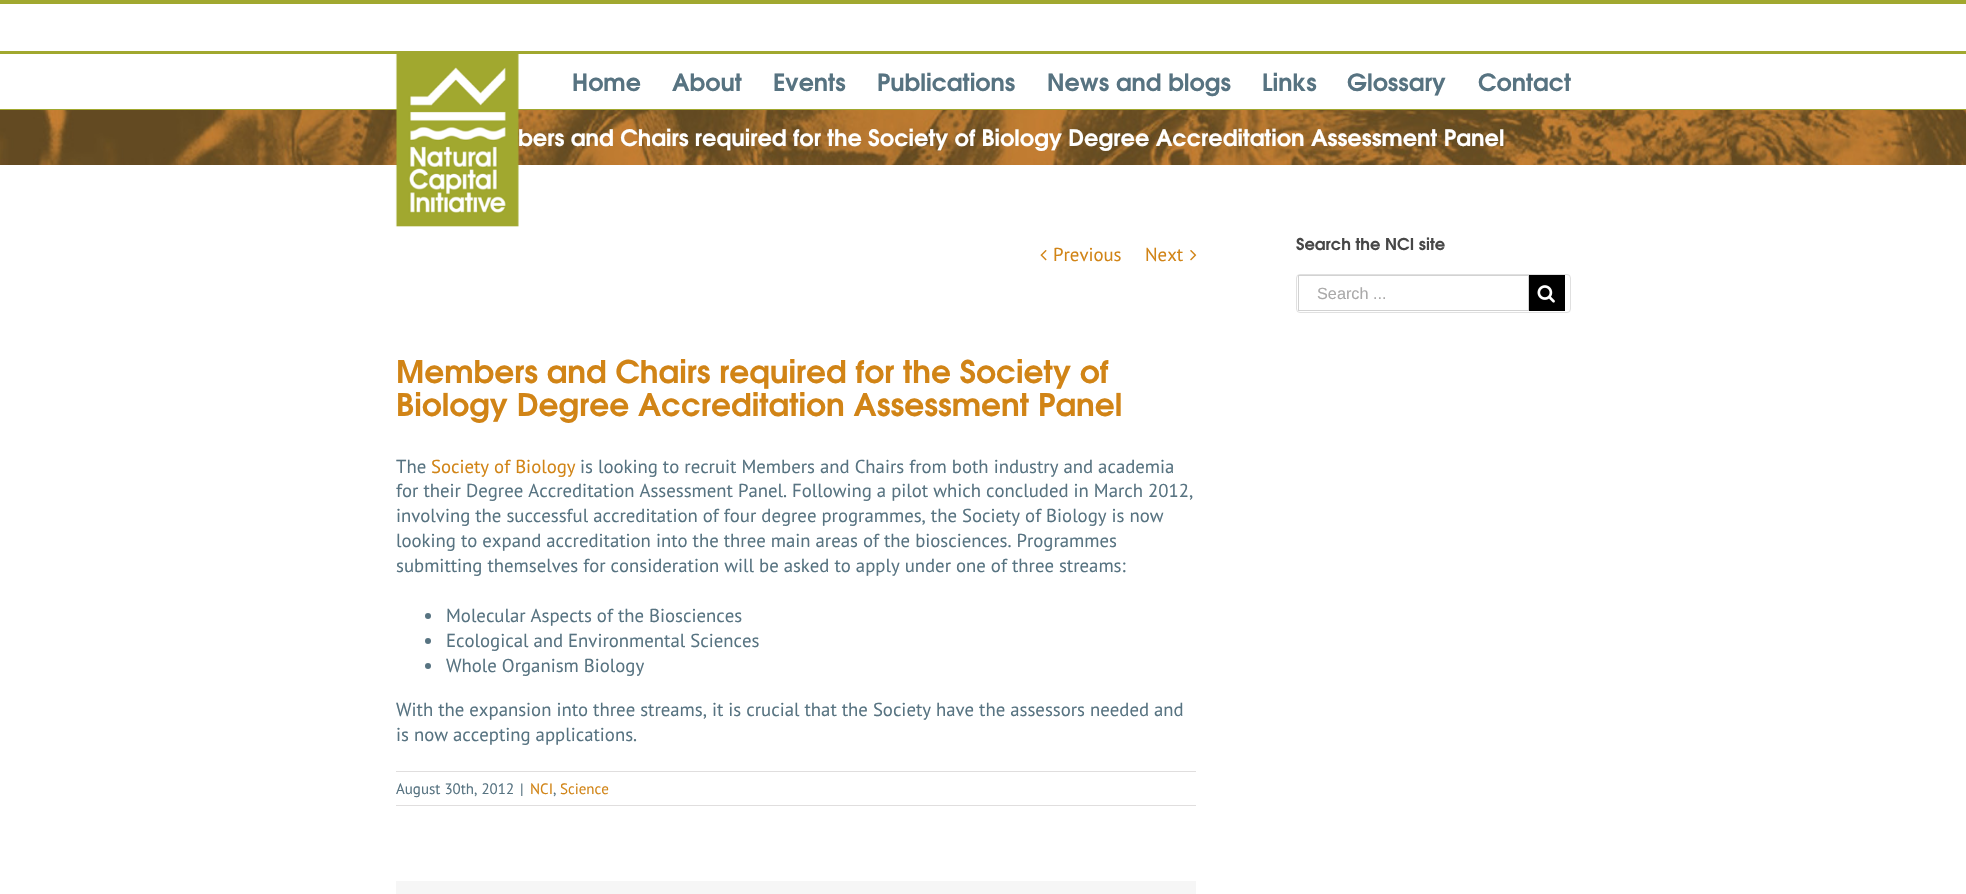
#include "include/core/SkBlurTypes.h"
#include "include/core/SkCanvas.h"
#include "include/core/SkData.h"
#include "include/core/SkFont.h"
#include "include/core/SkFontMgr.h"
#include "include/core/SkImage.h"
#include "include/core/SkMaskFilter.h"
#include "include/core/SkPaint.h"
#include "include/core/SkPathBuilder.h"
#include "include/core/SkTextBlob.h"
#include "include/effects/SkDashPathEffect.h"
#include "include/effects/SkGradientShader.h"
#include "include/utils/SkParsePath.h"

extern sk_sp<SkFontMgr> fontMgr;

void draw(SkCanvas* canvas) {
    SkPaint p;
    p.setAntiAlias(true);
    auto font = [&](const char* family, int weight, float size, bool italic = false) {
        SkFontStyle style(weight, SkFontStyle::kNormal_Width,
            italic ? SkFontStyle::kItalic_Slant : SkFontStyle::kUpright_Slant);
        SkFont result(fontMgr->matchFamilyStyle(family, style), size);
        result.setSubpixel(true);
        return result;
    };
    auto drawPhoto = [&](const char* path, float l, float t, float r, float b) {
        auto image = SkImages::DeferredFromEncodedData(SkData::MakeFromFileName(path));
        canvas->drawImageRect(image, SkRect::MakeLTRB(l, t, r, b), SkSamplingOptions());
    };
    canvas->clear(0xFFFFFFFF);
    p.setColor(0xFFA1A82F);
    canvas->drawRect(SkRect::MakeLTRB(0, 0, 1966, 4), p);
    canvas->drawRect(SkRect::MakeLTRB(0, 51, 1966, 54), p);
    drawPhoto("media/2.png", 0, 110, 1966, 165);
    canvas->drawRect(SkRect::MakeLTRB(0, 109, 1966, 110), p);
    drawPhoto("media/1.png", 395, 54, 519, 227);
    auto font1 = font("TeX Gyre Adventor", 700, 23.75f);
    p.setColor(0xFF577381);
    {
        const struct { const char* s; float x, y; } items[] = {
            {"Home", 572, 91},
            {"About", 672, 91},
            {"Events", 773, 91},
            {"Publications", 877, 91},
            {"News and blogs", 1047, 91},
            {"Links", 1262, 91},
            {"Glossary", 1347, 91},
            {"Contact", 1478, 91},
        };
        for (auto [s, x, y] : items) {
            canvas->drawString(s, x, y, font1, p);
        }
    }
    auto font2 = font("TeX Gyre Adventor", 700, 22.5f);
    p.setColor(0xFFFFFFFF);
    canvas->drawString("bers and Chairs required for the Society of Biology Degree Accreditation Assessment Panel", 518, 146, font2, p);
    drawPhoto("media/3.png", 1040, 250, 1047, 261);
    auto font3 = font("PT Sans", 400, 18.75f);
    p.setColor(0xFFD18416);
    canvas->drawString("Previous", 1053, 261, font3, p);
    canvas->drawString("Next", 1145, 261, font3, p);
    drawPhoto("media/4.png", 1190, 250, 1197, 261);
    auto font4 = font("TeX Gyre Adventor", 700, 31.25f);
    canvas->drawString("Members and Chairs required for the Society of", 396, 383, font4, p);
    canvas->drawString("Biology Degree Accreditation Assessment Panel", 396, 416, font4, p);
    p.setColor(0xFF577381);
    canvas->drawString("The", 396, 473, font3, p);
    p.setColor(0xFFD18416);
    canvas->drawString("Society of Biology", 431, 473, font3, p);
    p.setColor(0xFF577381);
    {
        const struct { const char* s; float x, y; } items[] = {
            {"is looking to recruit Members and Chairs from both industry and academia", 580, 473},
            {"for their Degree Accreditation Assessment Panel. Following a pilot which concluded in March 2012,", 396, 497},
            {"involving the successful accreditation of four degree programmes, the Society of Biology is now", 396, 522},
            {"looking to expand accreditation into the three main areas of the biosciences. Programmes", 396, 547},
            {"submitting themselves for consideration will be asked to apply under one of three streams:", 396, 572},
        };
        for (auto [s, x, y] : items) {
            canvas->drawString(s, x, y, font3, p);
        }
    }
    canvas->drawCircle(428, 616, 3, p);
    canvas->drawString("Molecular Aspects of the Biosciences", 446, 622, font3, p);
    canvas->drawCircle(428, 641, 3, p);
    canvas->drawString("Ecological and Environmental Sciences", 446, 647, font3, p);
    canvas->drawCircle(428, 666, 3, p);
    {
        const struct { const char* s; float x, y; } items[] = {
            {"Whole Organism Biology", 446, 672},
            {"With the expansion into three streams, it is crucial that the Society have the assessors needed and", 396, 716},
            {"is now accepting applications.", 396, 741},
        };
        for (auto [s, x, y] : items) {
            canvas->drawString(s, x, y, font3, p);
        }
    }
    p.setColor(0xFFE0DEDE);
    canvas->drawRect(SkRect::MakeLTRB(396, 771, 1196, 772), p);
    canvas->drawRect(SkRect::MakeLTRB(396, 805, 1196, 806), p);
    auto font5 = font("PT Sans", 400, 15);
    p.setColor(0xFF577381);
    canvas->drawString("August 30th, 2012", 396, 794, font5, p);
    canvas->drawString("|", 520, 794, font5, p);
    p.setColor(0xFFD18416);
    canvas->drawString("NCI", 530, 794, font5, p);
    p.setColor(0xFF577381);
    canvas->drawString(",", 553, 794, font5, p);
    p.setColor(0xFFD18416);
    canvas->drawString("Science", 560, 794, font5, p);
    p.setColor(0xFFF6F6F6);
    canvas->drawRect(SkRect::MakeLTRB(396, 881, 1196, 894), p);
    auto font6 = font("TeX Gyre Adventor", 700, 16.25f);
    p.setColor(0xFF474747);
    canvas->drawString("Search the NCI site", 1296, 250, font6, p);
    p.setStyle(SkPaint::kStroke_Style);
    p.setStrokeWidth(1);
    p.setColor(0xFFE0E0E0);
    canvas->drawRoundRect(SkRect::MakeLTRB(1296.5f, 274.5f, 1570.5f, 312.5f), 3.5f, 3.5f, p);
    p.setColor(0xFFD2D2D2);
    canvas->drawRect(SkRect::MakeLTRB(1298.5f, 275.5f, 1528.5f, 310.5f), p);
    auto font7 = font("Liberation Sans", 400, 16.25f);
    p.setStyle(SkPaint::kFill_Style);
    p.setColor(0xFFAAA9A9);
    canvas->drawString("Search ...", 1317, 299, font7, p);
    p.setColor(0xFF000000);
    canvas->drawRect(SkRect::MakeLTRB(1529, 275, 1565, 311), p);
    drawPhoto("media/5.png", 1537, 285, 1555, 303);
}
